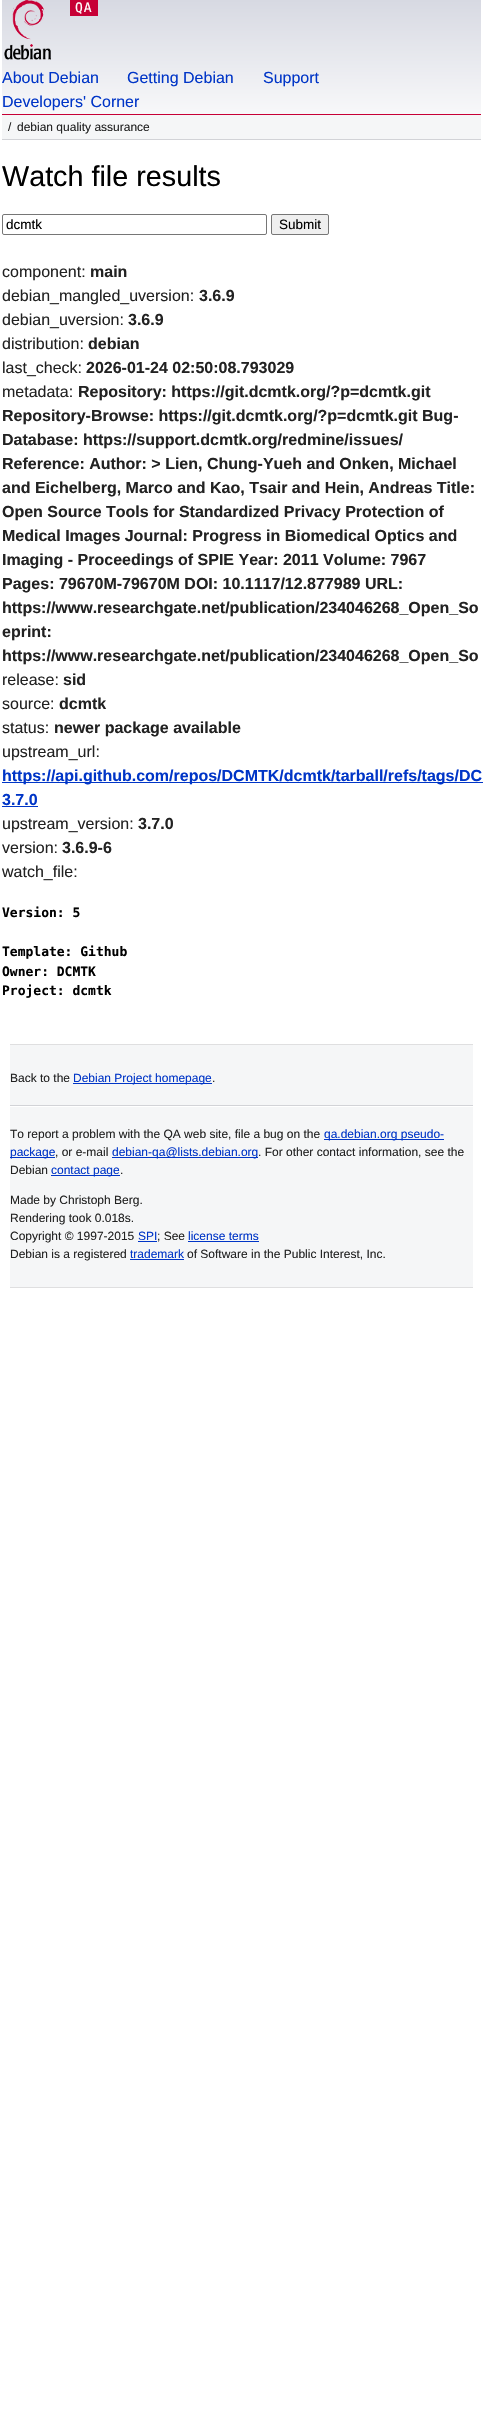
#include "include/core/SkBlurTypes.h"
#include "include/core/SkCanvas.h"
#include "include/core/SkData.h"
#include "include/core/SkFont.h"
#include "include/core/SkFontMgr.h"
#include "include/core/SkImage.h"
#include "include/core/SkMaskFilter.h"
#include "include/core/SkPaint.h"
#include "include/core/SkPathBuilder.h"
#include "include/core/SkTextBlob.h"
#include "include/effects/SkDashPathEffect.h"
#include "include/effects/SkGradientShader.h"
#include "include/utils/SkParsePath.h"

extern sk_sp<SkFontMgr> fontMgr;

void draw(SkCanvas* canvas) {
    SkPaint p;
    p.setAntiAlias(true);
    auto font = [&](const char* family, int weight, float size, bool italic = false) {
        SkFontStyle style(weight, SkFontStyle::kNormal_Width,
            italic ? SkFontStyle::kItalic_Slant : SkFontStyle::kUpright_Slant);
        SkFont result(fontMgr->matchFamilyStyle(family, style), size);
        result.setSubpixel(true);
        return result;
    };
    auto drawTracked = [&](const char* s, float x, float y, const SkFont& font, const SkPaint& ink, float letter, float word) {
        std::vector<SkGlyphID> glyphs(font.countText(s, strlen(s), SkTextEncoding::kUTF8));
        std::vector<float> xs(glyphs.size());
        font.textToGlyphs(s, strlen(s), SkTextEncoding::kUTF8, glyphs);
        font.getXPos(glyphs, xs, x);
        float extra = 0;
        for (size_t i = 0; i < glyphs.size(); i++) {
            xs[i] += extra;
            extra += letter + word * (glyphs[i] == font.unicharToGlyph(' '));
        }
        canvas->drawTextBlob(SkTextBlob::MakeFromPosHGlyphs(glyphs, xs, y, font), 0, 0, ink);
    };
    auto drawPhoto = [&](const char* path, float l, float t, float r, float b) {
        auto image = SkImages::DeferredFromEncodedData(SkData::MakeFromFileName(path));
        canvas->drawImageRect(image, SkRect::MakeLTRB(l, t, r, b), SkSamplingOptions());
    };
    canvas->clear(0xFFFFFFFF);
    {
        const SkColor colors[] = {0xFFD7D9E2, 0xFFFFFFFF};
        const float stops[] = {0, 1};
        const SkPoint ends[] = {{242, 0}, {242, 140}};
        p.setShader(SkGradientShader::MakeLinear(ends, colors, stops, 2, SkTileMode::kClamp));
        p.setAlpha(255);
    }
    canvas->drawRect(SkRect::MakeLTRB(2, 0, 481, 114), p);
    drawPhoto("media/1.png", 4, 0, 51, 60);
    p.setShader(nullptr);
    p.setColor(0xFFC70036);
    canvas->drawRect(SkRect::MakeLTRB(70, 0, 98, 16), p);
    auto font1 = font("DejaVu Sans Mono", 400, 13);
    p.setColor(0xFFFFFFFF);
    drawTracked("QA", 75, 12, font1, p, 1, 0);
    p.setColor(0xFFC70036);
    canvas->drawRect(SkRect::MakeLTRB(2, 114, 481, 115), p);
    auto font2 = font("Liberation Sans", 400, 16);
    p.setColor(0xFF0035C7);
    {
        const struct { const char* s; float x, y; } items[] = {
            {"About Debian", 2, 83},
            {"Getting Debian", 127, 83},
            {"Support", 263, 83},
            {"Developers' Corner", 2, 107},
        };
        for (auto [s, x, y] : items) {
            canvas->drawString(s, x, y, font2, p);
        }
    }
    p.setColor(0xFFF5F6F7);
    canvas->drawRect(SkRect::MakeLTRB(2, 115, 481, 139), p);
    p.setColor(0xFFD2D3D7);
    canvas->drawRect(SkRect::MakeLTRB(2, 139, 481, 140), p);
    auto font3 = font("Liberation Sans", 400, 12);
    p.setColor(0xFF222222);
    canvas->drawString("/", 8, 131, font3, p);
    canvas->drawString("debian quality assurance", 17, 131, font3, p);
    auto font4 = font("Liberation Sans", 400, 28.75f);
    p.setColor(0xFF000000);
    canvas->drawString("Watch file results", 2, 186, font4, p);
    p.setStyle(SkPaint::kStroke_Style);
    p.setStrokeWidth(1);
    p.setColor(0xFF767676);
    canvas->drawRoundRect(SkRect::MakeLTRB(2.5f, 214.5f, 266.5f, 234.5f), 1.5f, 1.5f, p);
    auto font5 = font("Liberation Sans", 400, 13.5f);
    p.setStyle(SkPaint::kFill_Style);
    p.setColor(0xFF000000);
    canvas->drawString("dcmtk", 6, 229, font5, p);
    p.setColor(0xFFEFEFEF);
    canvas->drawRoundRect(SkRect::MakeLTRB(271.5f, 214.5f, 328.5f, 234.5f), 1.5f, 1.5f, p);
    p.setStyle(SkPaint::kStroke_Style);
    p.setColor(0xFF767676);
    canvas->drawRoundRect(SkRect::MakeLTRB(271.5f, 214.5f, 328.5f, 234.5f), 1.5f, 1.5f, p);
    p.setStyle(SkPaint::kFill_Style);
    p.setColor(0xFF000000);
    canvas->drawString("Submit", 279, 229, font5, p);
    p.setColor(0xFF222222);
    canvas->drawString("component:", 2, 277, font2, p);
    auto font6 = font("Liberation Sans", 700, 16);
    canvas->drawString("main", 90, 277, font6, p);
    canvas->drawString("debian_mangled_uversion:", 2, 301, font2, p);
    canvas->drawString("3.6.9", 199, 301, font6, p);
    canvas->drawString("debian_uversion:", 2, 325, font2, p);
    canvas->drawString("3.6.9", 128, 325, font6, p);
    canvas->drawString("distribution:", 2, 349, font2, p);
    canvas->drawString("debian", 88, 349, font6, p);
    canvas->drawString("last_check:", 2, 373, font2, p);
    canvas->drawString("2026-01-24 02:50:08.793029", 86, 373, font6, p);
    canvas->drawString("metadata:", 2, 397, font2, p);
    {
        const struct { const char* s; float x, y; } items[] = {
            {"Repository: https://git.dcmtk.org/?p=dcmtk.git", 78, 397},
            {"Repository-Browse: https://git.dcmtk.org/?p=dcmtk.git Bug-", 2, 421},
            {"Database: https://support.dcmtk.org/redmine/issues/", 2, 445},
            {"Reference: Author: > Lien, Chung-Yueh and Onken, Michael", 2, 469},
            {"and Eichelberg, Marco and Kao, Tsair and Hein, Andreas Title:", 2, 493},
            {"Open Source Tools for Standardized Privacy Protection of", 2, 517},
            {"Medical Images Journal: Progress in Biomedical Optics and", 2, 541},
            {"Imaging - Proceedings of SPIE Year: 2011 Volume: 7967", 2, 565},
            {"Pages: 79670M-79670M DOI: 10.1117/12.877989 URL:", 2, 589},
            {"https://www.researchgate.net/publication/234046268_Open_So", 2, 613},
            {"eprint:", 2, 637},
            {"https://www.researchgate.net/publication/234046268_Open_So", 2, 661},
        };
        for (auto [s, x, y] : items) {
            canvas->drawString(s, x, y, font6, p);
        }
    }
    canvas->drawString("release:", 2, 685, font2, p);
    canvas->drawString("sid", 63, 685, font6, p);
    canvas->drawString("source:", 2, 709, font2, p);
    canvas->drawString("dcmtk", 59, 709, font6, p);
    canvas->drawString("status:", 2, 733, font2, p);
    canvas->drawString("newer package available", 54, 733, font6, p);
    canvas->drawString("upstream_url:", 2, 757, font2, p);
    p.setColor(0xFF0035C7);
    canvas->drawRect(SkRect::MakeLTRB(2, 782, 483, 783), p);
    canvas->drawString("https://api.github.com/repos/DCMTK/dcmtk/tarball/refs/tags/DC", 2, 781, font6, p);
    canvas->drawString("3.7.0", 2, 805, font6, p);
    canvas->drawRect(SkRect::MakeLTRB(2, 806, 38, 807), p);
    p.setColor(0xFF222222);
    canvas->drawString("upstream_version:", 2, 829, font2, p);
    canvas->drawString("3.7.0", 138, 829, font6, p);
    canvas->drawString("version:", 2, 853, font2, p);
    canvas->drawString("3.6.9-6", 62, 853, font6, p);
    canvas->drawString("watch_file:", 2, 877, font2, p);
    auto font7 = font("DejaVu Sans Mono", 700, 13);
    p.setColor(0xFF000000);
    {
        const struct { const char* s; float x, y; } items[] = {
            {"Version: 5", 2, 917},
            {"Template: Github", 2, 956},
            {"Owner: DCMTK", 2, 976},
            {"Project: dcmtk", 2, 995},
        };
        for (auto [s, x, y] : items) {
            canvas->drawString(s, x, y, font7, p);
        }
    }
    {
        const struct { float l, t, r, b; SkColor color; } items[] = {
            {10, 1045, 473, 1287, 0xFFF5F6F7},
            {10, 1044, 473, 1045, 0xFFDFDFE0},
            {10, 1287, 473, 1288, 0xFFDFDFE0},
        };
        for (auto [l, t, r, b, color] : items) {
            p.setColor(color);
            canvas->drawRect(SkRect::MakeLTRB(l, t, r, b), p);
        }
    }
    p.setColor(0xFF222222);
    canvas->drawString("Back to the", 10, 1082, font3, p);
    p.setColor(0xFF0035C7);
    canvas->drawRect(SkRect::MakeLTRB(73, 1083, 212, 1084), p);
    canvas->drawString("Debian Project homepage", 73, 1082, font3, p);
    p.setColor(0xFF222222);
    canvas->drawString(".", 212, 1082, font3, p);
    p.setColor(0xFFD2D3D7);
    canvas->drawRect(SkRect::MakeLTRB(10, 1105, 473, 1106), p);
    p.setColor(0xFFFFFFFF);
    canvas->drawRect(SkRect::MakeLTRB(10, 1106, 473, 1107), p);
    p.setColor(0xFF222222);
    canvas->drawString("To report a problem with the QA web site, file a bug on the", 10, 1138, font3, p);
    p.setColor(0xFF0035C7);
    canvas->drawRect(SkRect::MakeLTRB(324, 1139, 444, 1140), p);
    canvas->drawString("qa.debian.org pseudo-", 324, 1138, font3, p);
    canvas->drawRect(SkRect::MakeLTRB(10, 1157, 55, 1158), p);
    canvas->drawString("package", 10, 1156, font3, p);
    p.setColor(0xFF222222);
    canvas->drawString(", or e-mail", 55, 1156, font3, p);
    p.setColor(0xFF0035C7);
    canvas->drawRect(SkRect::MakeLTRB(112, 1157, 258, 1158), p);
    canvas->drawString("debian-qa@lists.debian.org", 112, 1156, font3, p);
    p.setColor(0xFF222222);
    canvas->drawString(". For other contact information, see the", 258, 1156, font3, p);
    canvas->drawString("Debian", 10, 1174, font3, p);
    p.setColor(0xFF0035C7);
    canvas->drawRect(SkRect::MakeLTRB(51, 1175, 120, 1176), p);
    canvas->drawString("contact page", 51, 1174, font3, p);
    p.setColor(0xFF222222);
    {
        const struct { const char* s; float x, y; } items[] = {
            {".", 120, 1174},
            {"Made by Christoph Berg.", 10, 1204},
            {"Rendering took 0.018s.", 10, 1222},
            {"Copyright © 1997-2015", 10, 1240},
        };
        for (auto [s, x, y] : items) {
            canvas->drawString(s, x, y, font3, p);
        }
    }
    p.setColor(0xFF0035C7);
    canvas->drawString("SPI", 138, 1240, font3, p);
    canvas->drawRect(SkRect::MakeLTRB(138, 1241, 157, 1242), p);
    p.setColor(0xFF222222);
    canvas->drawString("; See", 157, 1240, font3, p);
    p.setColor(0xFF0035C7);
    canvas->drawString("license terms", 188, 1240, font3, p);
    canvas->drawRect(SkRect::MakeLTRB(188, 1241, 259, 1242), p);
    p.setColor(0xFF222222);
    canvas->drawString("Debian is a registered", 10, 1258, font3, p);
    p.setColor(0xFF0035C7);
    canvas->drawString("trademark", 130, 1258, font3, p);
    canvas->drawRect(SkRect::MakeLTRB(130, 1259, 184, 1260), p);
    p.setColor(0xFF222222);
    canvas->drawString("of Software in the Public Interest, Inc.", 187, 1258, font3, p);
}
